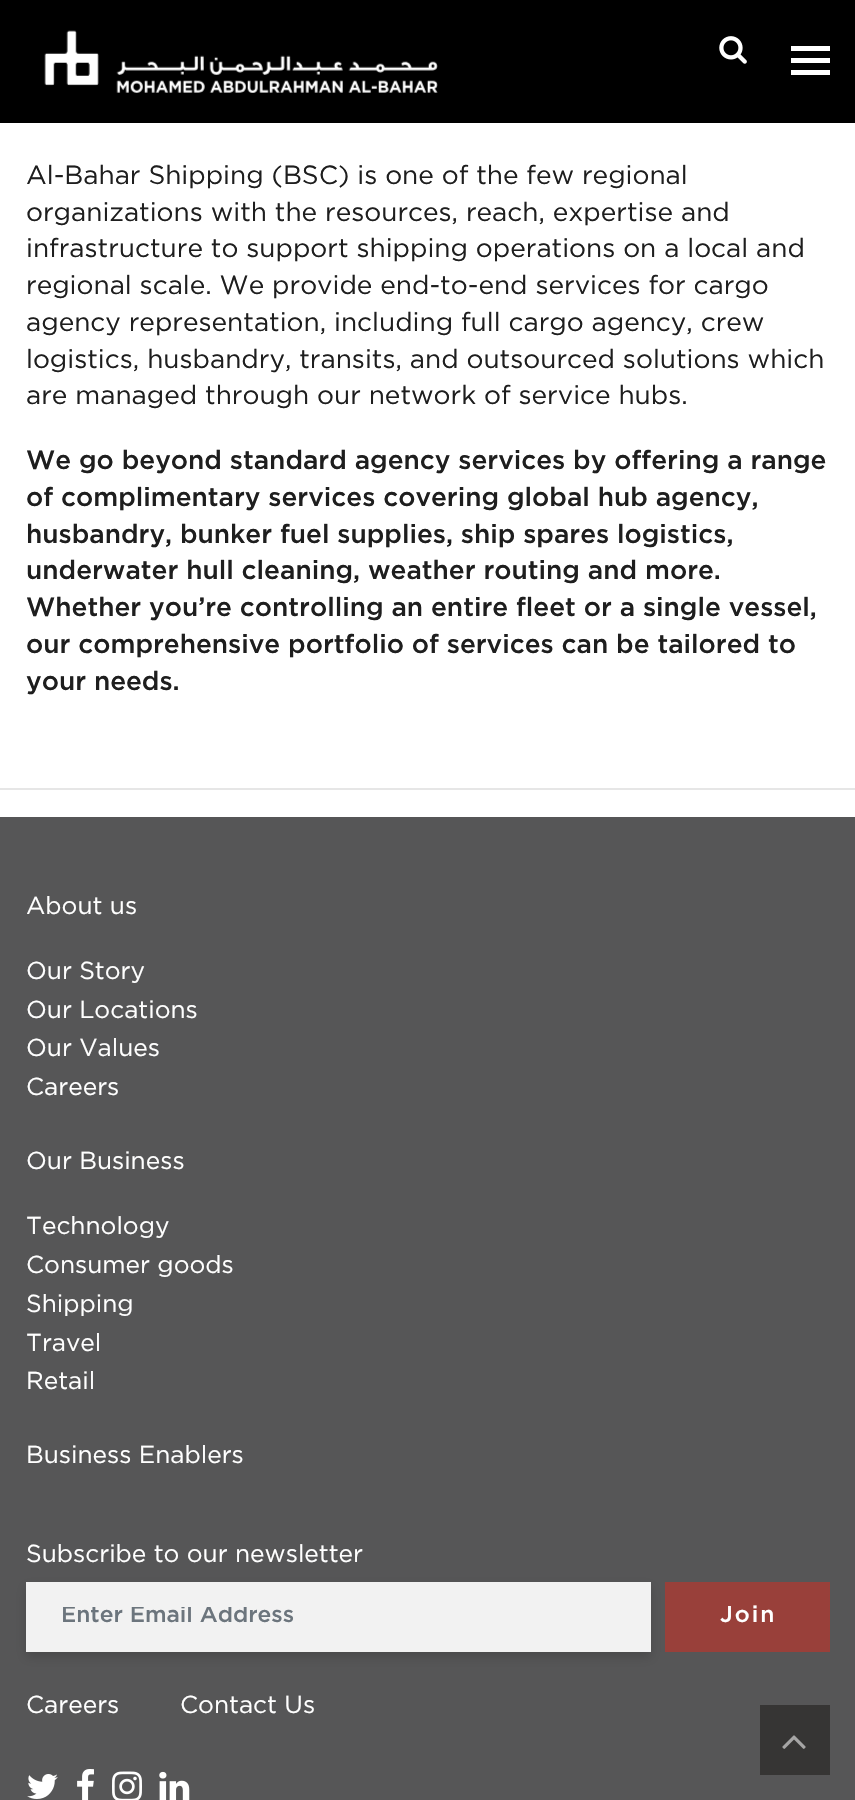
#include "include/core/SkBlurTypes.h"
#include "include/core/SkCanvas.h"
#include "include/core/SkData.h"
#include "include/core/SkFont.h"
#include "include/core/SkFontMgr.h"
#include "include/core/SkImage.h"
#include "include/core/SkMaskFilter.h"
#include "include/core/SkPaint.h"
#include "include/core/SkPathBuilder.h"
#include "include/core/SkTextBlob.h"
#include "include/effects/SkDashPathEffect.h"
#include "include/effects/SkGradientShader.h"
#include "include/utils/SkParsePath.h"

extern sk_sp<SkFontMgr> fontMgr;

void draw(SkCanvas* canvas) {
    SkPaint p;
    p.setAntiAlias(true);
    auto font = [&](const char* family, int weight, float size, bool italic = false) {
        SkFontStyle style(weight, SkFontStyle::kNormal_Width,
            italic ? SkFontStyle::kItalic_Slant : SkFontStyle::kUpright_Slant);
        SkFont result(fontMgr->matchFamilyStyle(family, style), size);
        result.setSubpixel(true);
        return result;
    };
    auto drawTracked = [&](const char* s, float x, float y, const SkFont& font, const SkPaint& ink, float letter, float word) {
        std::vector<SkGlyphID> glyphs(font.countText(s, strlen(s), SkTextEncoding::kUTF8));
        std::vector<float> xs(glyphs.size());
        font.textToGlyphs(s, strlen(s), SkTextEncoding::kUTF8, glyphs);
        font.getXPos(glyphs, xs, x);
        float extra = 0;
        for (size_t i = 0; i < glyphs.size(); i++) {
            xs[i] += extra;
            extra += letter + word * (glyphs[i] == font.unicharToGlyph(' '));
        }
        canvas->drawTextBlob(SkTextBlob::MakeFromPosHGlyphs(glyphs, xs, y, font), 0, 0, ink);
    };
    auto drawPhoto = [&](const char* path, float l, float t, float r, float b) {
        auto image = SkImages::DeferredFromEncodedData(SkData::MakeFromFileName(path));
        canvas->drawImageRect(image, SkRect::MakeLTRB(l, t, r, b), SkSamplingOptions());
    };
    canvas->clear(0xFFFFFFFF);
    p.setColor(0xFF000000);
    canvas->drawRect(SkRect::MakeLTRB(0, 0, 855, 123), p);
    drawPhoto("media/1.png", 44, 30, 438, 93);
    drawPhoto("media/2.png", 719, 36, 747, 64);
    {
        const struct { float l, t, r, b; SkColor color; } items[] = {
            {791, 46, 830, 51, 0xFFFFFFFF},
            {791, 58, 830, 63, 0xFFFFFFFF},
            {791, 70, 830, 75, 0xFFFFFFFF},
        };
        for (auto [l, t, r, b, color] : items) {
            p.setColor(color);
            canvas->drawRect(SkRect::MakeLTRB(l, t, r, b), p);
        }
    }
    auto font1 = font("Gotham", 400, 26.25f);
    p.setColor(0xFF1E1E1E);
    {
        const struct { const char* s; float x, y; } items[] = {
            {"Al-Bahar Shipping (BSC) is one of the few regional", 26, 184},
            {"organizations with the resources, reach, expertise and", 26, 221},
            {"infrastructure to support shipping operations on a local and", 26, 257},
            {"regional scale. We provide end-to-end services for cargo", 26, 294},
            {"agency representation, including full cargo agency, crew", 26, 331},
            {"logistics, husbandry, transits, and outsourced solutions which", 26, 368},
            {"are managed through our network of service hubs.", 26, 404},
        };
        for (auto [s, x, y] : items) {
            canvas->drawString(s, x, y, font1, p);
        }
    }
    auto font2 = font("Gotham", 500, 26.25f);
    {
        const struct { const char* s; float x, y; } items[] = {
            {"We go beyond standard agency services by offering a range", 26, 469},
            {"of complimentary services covering global hub agency,", 26, 506},
            {"husbandry, bunker fuel supplies, ship spares logistics,", 26, 543},
            {"underwater hull cleaning, weather routing and more.", 26, 579},
            {"Whether you’re controlling an entire fleet or a single vessel,", 26, 616},
            {"our comprehensive portfolio of services can be tailored to", 26, 653},
            {"your needs.", 26, 690},
        };
        for (auto [s, x, y] : items) {
            canvas->drawString(s, x, y, font2, p);
        }
    }
    p.setColor(0xFFE6E6E6);
    canvas->drawRect(SkRect::MakeLTRB(0, 788, 855, 790), p);
    p.setColor(0xFF565657);
    canvas->drawRect(SkRect::MakeLTRB(0, 817, 855, 1800), p);
    auto font3 = font("Gotham", 400, 24.5f);
    p.setColor(0xFFFFFFFF);
    {
        const struct { const char* s; float x, y; } items[] = {
            {"About us", 26, 914},
            {"Our Story", 26, 979},
            {"Our Locations", 26, 1018},
            {"Our Values", 26, 1056},
            {"Careers", 26, 1095},
            {"Our Business", 26, 1169},
            {"Technology", 26, 1234},
            {"Consumer goods", 26, 1273},
            {"Shipping", 26, 1312},
            {"Travel", 26, 1351},
            {"Retail", 26, 1389},
            {"Business Enablers", 26, 1463},
            {"Subscribe to our newsletter", 26, 1562},
        };
        for (auto [s, x, y] : items) {
            canvas->drawString(s, x, y, font3, p);
        }
    }
    p.setColor(0x26000000);
    p.setMaskFilter(SkMaskFilter::MakeBlur(kNormal_SkBlurStyle, 5));
    canvas->drawRect(SkRect::MakeLTRB(26, 1587, 651, 1657), p);
    p.setMaskFilter(nullptr);
    p.setColor(0xFFF2F2F2);
    canvas->drawRect(SkRect::MakeLTRB(26, 1582, 651, 1652), p);
    canvas->save();
    canvas->clipRect(SkRect::MakeLTRB(61, 1607, 581, 1628));
    auto font4 = font("Gotham", 500, 22.75f);
    p.setColor(0xFF6C757D);
    canvas->drawString("Enter Email Address", 61, 1622, font4, p);
    canvas->restore();
    p.setColor(0xFF99403A);
    canvas->drawRect(SkRect::MakeLTRB(665, 1582, 830, 1652), p);
    p.setColor(0xFFFFFFFF);
    drawTracked("Join", 720, 1622, font4, p, 2, 0);
    canvas->drawString("Careers", 26, 1713, font3, p);
    canvas->drawString("Contact Us", 180, 1713, font3, p);
    drawPhoto("media/3.png", 27, 1774, 58, 1799);
    drawPhoto("media/4.png", 77, 1769, 94, 1800);
    drawPhoto("media/5.png", 112, 1771, 142, 1800);
    drawPhoto("media/6.png", 159, 1771, 190, 1800);
    p.setColor(0xFF363534);
    canvas->drawRect(SkRect::MakeLTRB(760, 1705, 830, 1775), p);
    drawPhoto("media/7.png", 782, 1735, 806, 1749);
}
